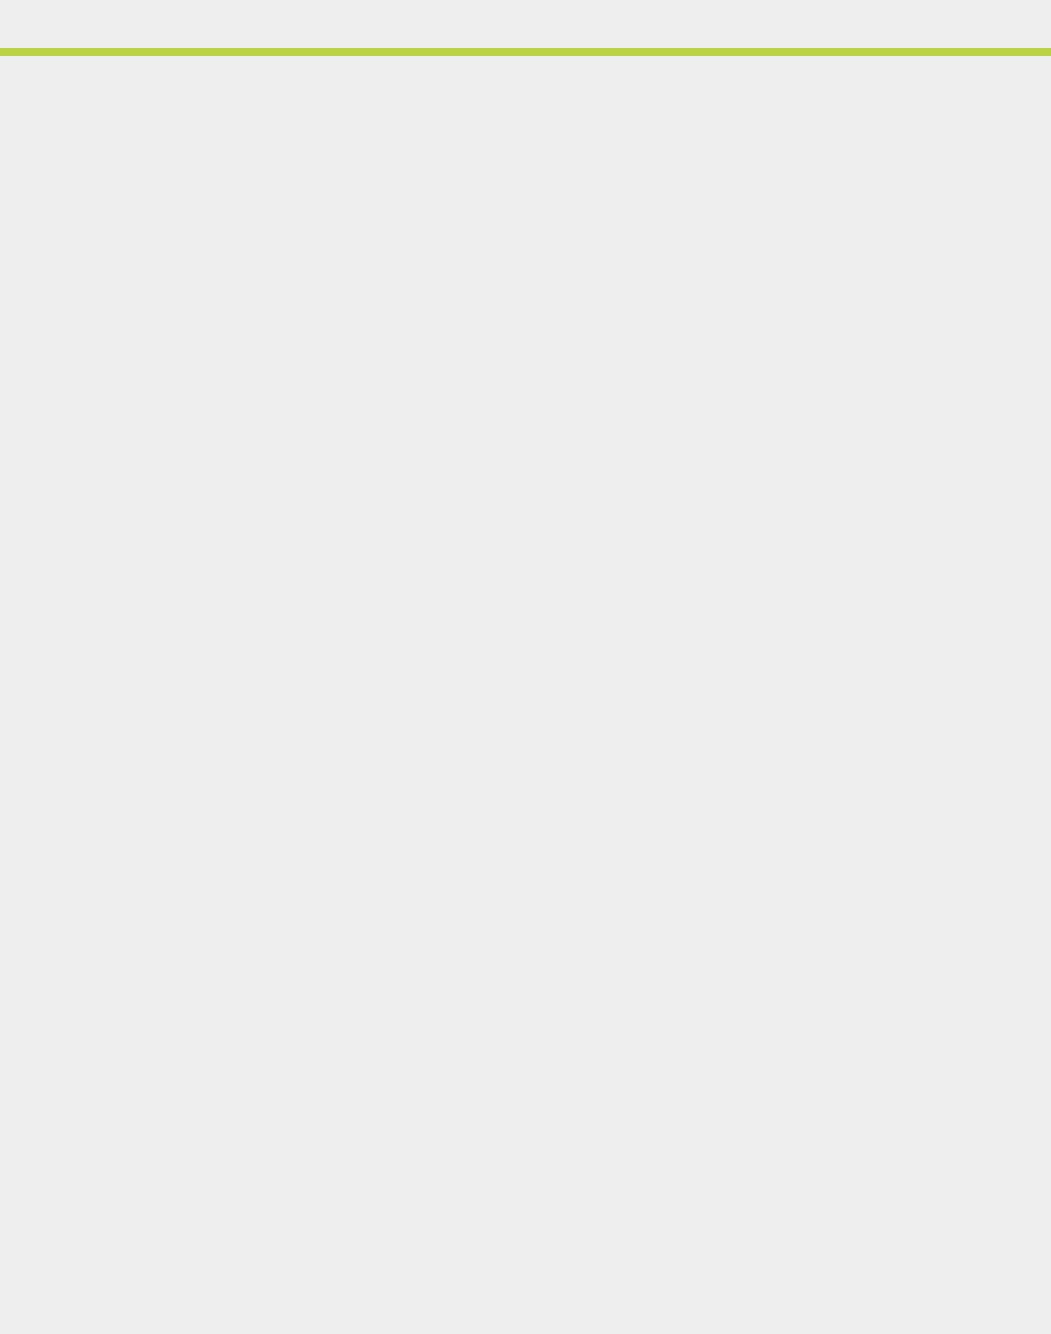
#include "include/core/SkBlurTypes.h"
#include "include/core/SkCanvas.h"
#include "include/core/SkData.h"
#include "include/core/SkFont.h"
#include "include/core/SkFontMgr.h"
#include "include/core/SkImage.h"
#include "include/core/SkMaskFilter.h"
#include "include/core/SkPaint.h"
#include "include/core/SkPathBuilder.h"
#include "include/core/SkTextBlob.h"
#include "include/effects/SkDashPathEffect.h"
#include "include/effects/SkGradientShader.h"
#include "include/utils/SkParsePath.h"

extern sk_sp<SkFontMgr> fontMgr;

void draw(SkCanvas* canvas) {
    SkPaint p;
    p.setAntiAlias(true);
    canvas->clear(0xFFEEEEEE);
    p.setColor(0xFFBAD342);
    canvas->drawRect(SkRect::MakeLTRB(0, 48, 1051, 56), p);
}
